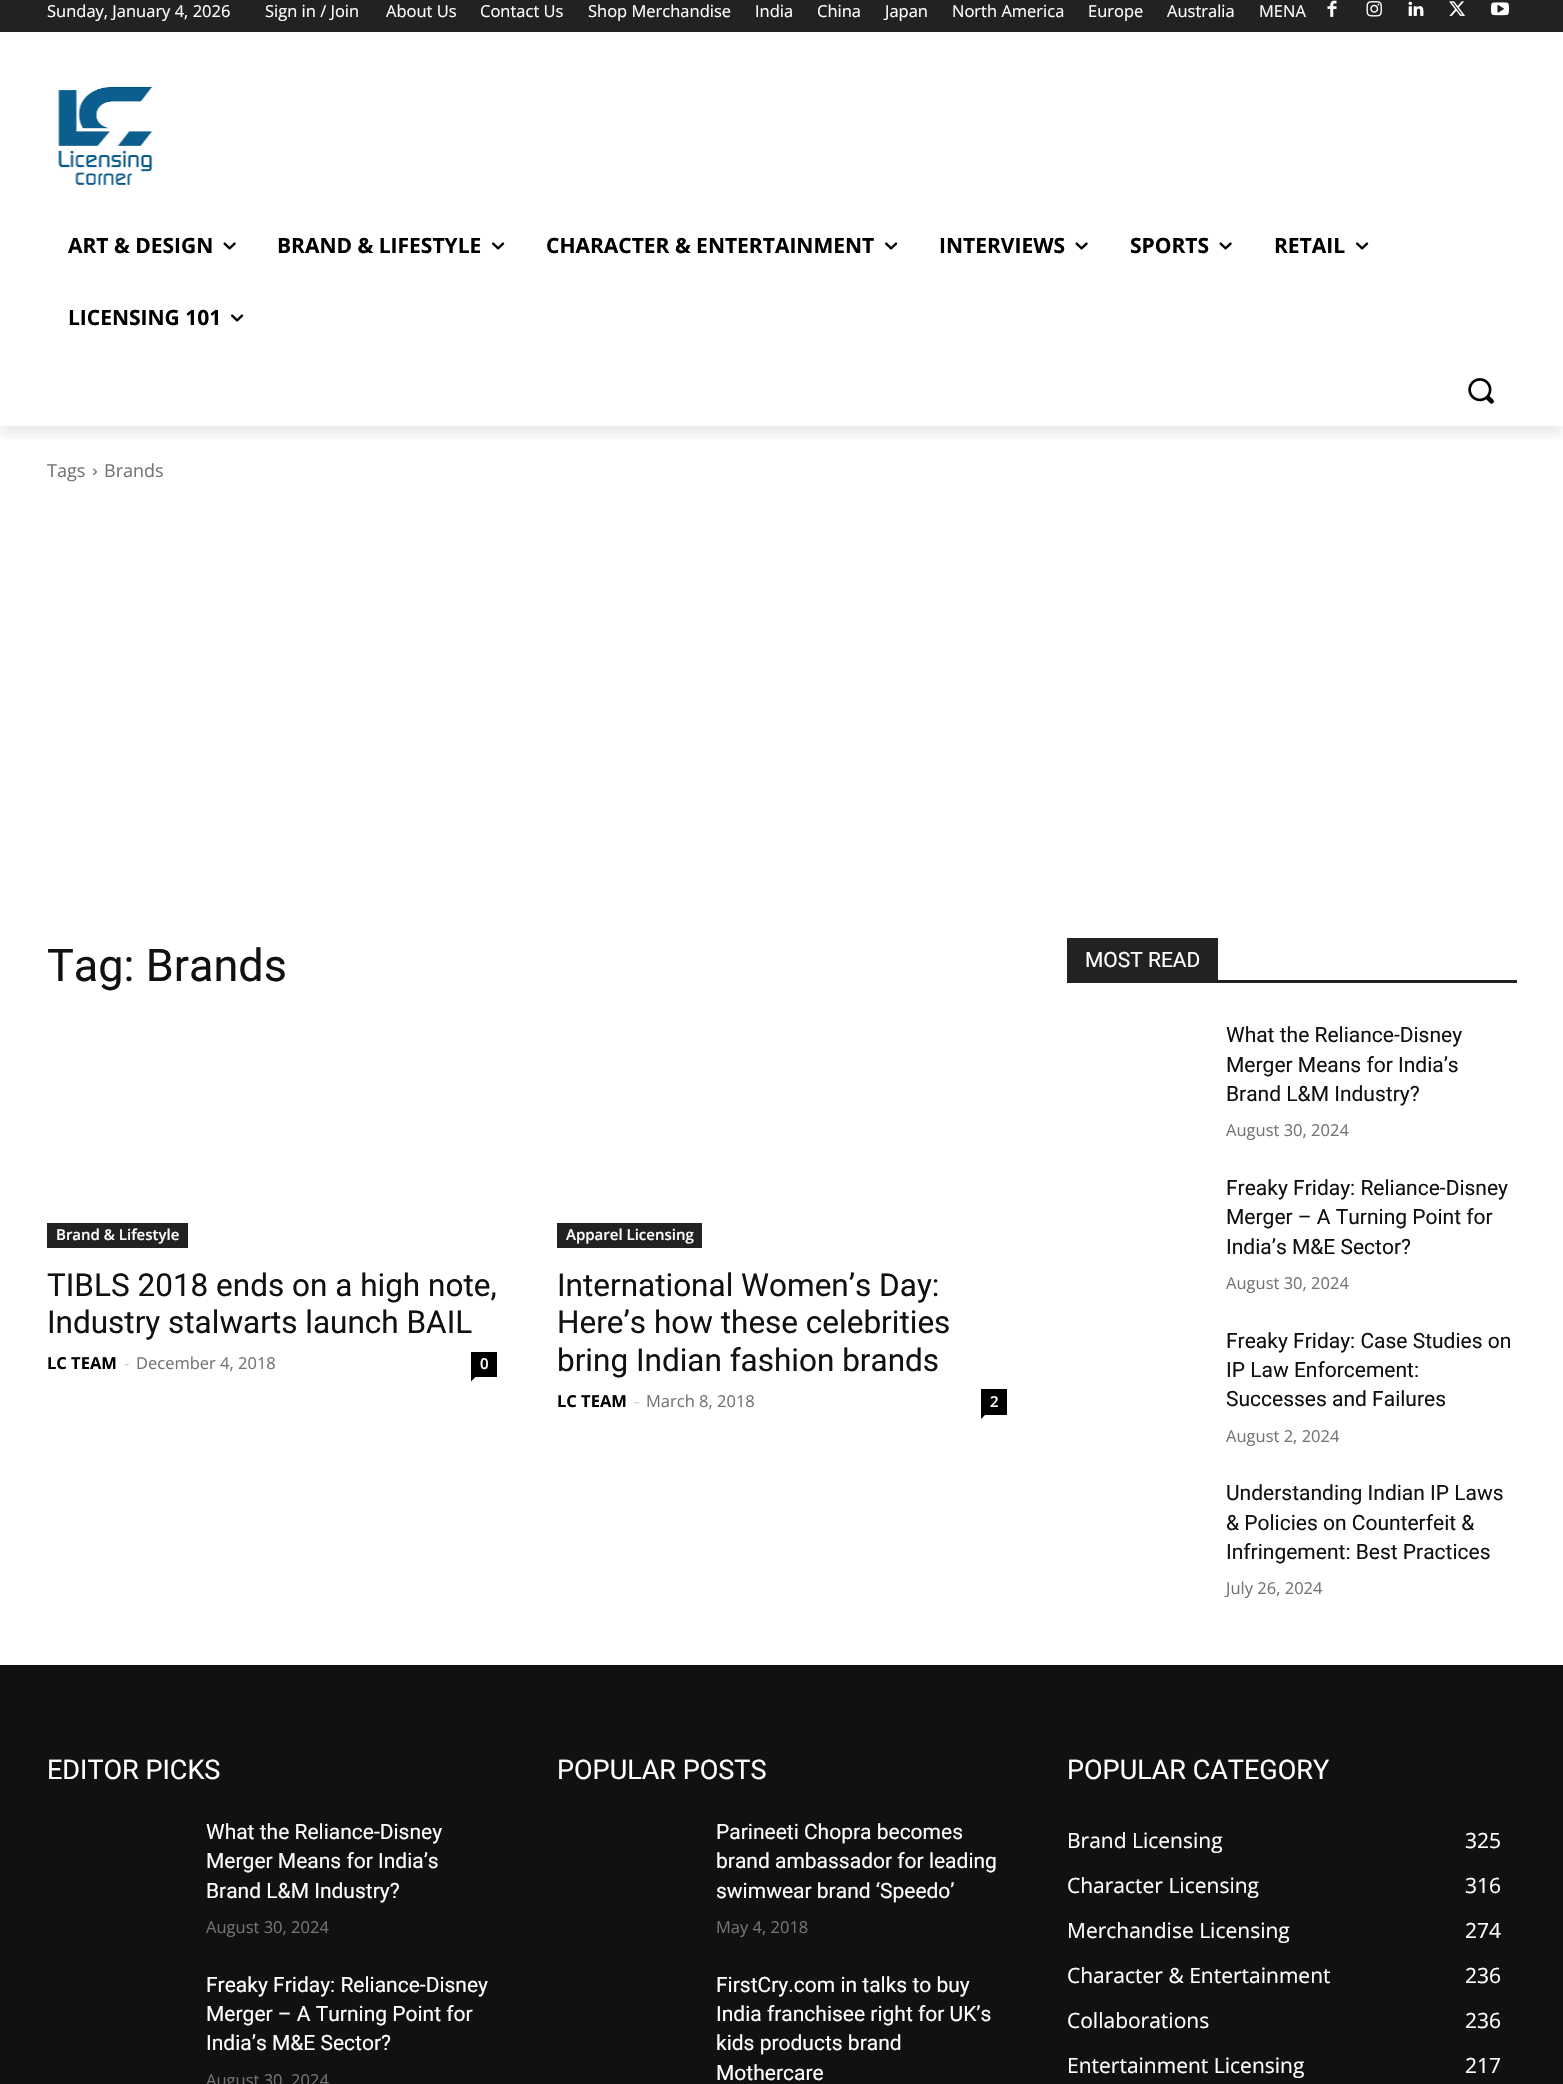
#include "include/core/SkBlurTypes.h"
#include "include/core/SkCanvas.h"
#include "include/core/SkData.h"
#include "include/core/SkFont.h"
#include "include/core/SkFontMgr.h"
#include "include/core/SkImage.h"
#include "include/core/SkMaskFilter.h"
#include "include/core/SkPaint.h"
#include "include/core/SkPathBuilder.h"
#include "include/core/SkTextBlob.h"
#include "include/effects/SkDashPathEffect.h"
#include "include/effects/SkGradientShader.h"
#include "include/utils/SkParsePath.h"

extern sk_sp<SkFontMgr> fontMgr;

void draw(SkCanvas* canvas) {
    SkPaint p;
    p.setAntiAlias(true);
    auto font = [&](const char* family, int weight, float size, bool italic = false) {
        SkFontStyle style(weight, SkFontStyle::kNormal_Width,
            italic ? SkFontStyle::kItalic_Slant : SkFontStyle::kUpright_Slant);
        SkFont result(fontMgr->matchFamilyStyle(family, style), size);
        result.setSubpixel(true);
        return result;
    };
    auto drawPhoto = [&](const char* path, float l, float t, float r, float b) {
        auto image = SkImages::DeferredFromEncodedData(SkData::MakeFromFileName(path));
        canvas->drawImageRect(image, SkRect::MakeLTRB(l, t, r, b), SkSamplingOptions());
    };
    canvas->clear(0xFFFFFFFF);
    p.setColor(0xFF222222);
    canvas->drawRect(SkRect::MakeLTRB(0, 0, 1563, 32), p);
    drawPhoto("media/1.png", 1327, 0, 1337, 17);
    drawPhoto("media/2.png", 1366, 1, 1382, 17);
    drawPhoto("media/3.png", 1408, 1, 1424, 16);
    drawPhoto("media/4.png", 1449, 1, 1465, 16);
    drawPhoto("media/5.png", 1491, 2, 1509, 16);
    drawPhoto("media/6.png", 58, 86, 153, 185);
    canvas->save();
    canvas->clipRect(SkRect::MakeLTRB(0, 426, 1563, 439));
    p.setColor(0x14000000);
    p.setMaskFilter(SkMaskFilter::MakeBlur(kNormal_SkBlurStyle, 6));
    canvas->drawRect(SkRect::MakeLTRB(0, -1, 1563, 435), p);
    p.setMaskFilter(nullptr);
    canvas->restore();
    auto font1 = font("Open Sans", 400, 16.5f);
    p.setColor(0xFFFFFFFF);
    {
        const struct { const char* s; float x, y; } items[] = {
            {"Sunday, January 4, 2026", 47, 17},
            {"Sign in / Join", 265, 17},
            {"About Us", 386, 17},
            {"Contact Us", 480, 17},
            {"Shop Merchandise", 588, 17},
            {"India", 755, 17},
            {"China", 817, 17},
            {"Japan", 885, 17},
            {"North America", 952, 17},
            {"Europe", 1088, 17},
            {"Australia", 1167, 17},
            {"MENA", 1259, 17},
        };
        for (auto [s, x, y] : items) {
            canvas->drawString(s, x, y, font1, p);
        }
    }
    auto font2 = font("Open Sans", 700, 21);
    p.setColor(0xFF000000);
    canvas->drawString("ART & DESIGN", 68, 253, font2, p);
    drawPhoto("media/7.png", 223, 242, 236, 250);
    canvas->drawString("BRAND & LIFESTYLE", 277, 253, font2, p);
    drawPhoto("media/8.png", 492, 242, 505, 250);
    canvas->drawString("CHARACTER & ENTERTAINMENT", 546, 253, font2, p);
    drawPhoto("media/8.png", 885, 242, 898, 250);
    canvas->drawString("INTERVIEWS", 939, 253, font2, p);
    drawPhoto("media/7.png", 1075, 242, 1088, 250);
    canvas->drawString("SPORTS", 1130, 253, font2, p);
    drawPhoto("media/7.png", 1219, 242, 1232, 250);
    canvas->drawString("RETAIL", 1274, 253, font2, p);
    drawPhoto("media/8.png", 1356, 242, 1369, 250);
    canvas->drawString("LICENSING 101", 68, 325, font2, p);
    drawPhoto("media/8.png", 231, 314, 244, 322);
    drawPhoto("media/9.png", 1468, 378, 1494, 404);
    auto font3 = font("Open Sans", 400, 18);
    p.setColor(0xFF747474);
    canvas->drawString("Tags", 47, 477, font3, p);
    drawPhoto("media/10.png", 93, 468, 97, 476);
    canvas->drawString("Brands", 104, 477, font3, p);
    auto font4 = font("Roboto", 400, 45);
    p.setColor(0xFF111111);
    canvas->drawString("Tag: Brands", 47, 981, font4, p);
    p.setColor(0xFF222222);
    canvas->drawRect(SkRect::MakeLTRB(47, 1223, 188, 1248), p);
    auto font5 = font("Open Sans", 600, 15);
    p.setColor(0xFFFFFFFF);
    canvas->drawString("Brand & Lifestyle", 56, 1240, font5, p);
    auto font6 = font("Roboto", 400, 31.5f);
    p.setColor(0xFF111111);
    canvas->drawString("TIBLS 2018 ends on a high note,", 47, 1296, font6, p);
    canvas->drawString("Industry stalwarts launch BAIL", 47, 1333, font6, p);
    auto font7 = font("Open Sans", 700, 16.5f);
    p.setColor(0xFF000000);
    canvas->drawString("LC TEAM", 47, 1369, font7, p);
    p.setColor(0xFFCCCCCC);
    canvas->drawString("-", 124, 1369, font1, p);
    p.setColor(0xFF747474);
    canvas->drawString("December 4, 2018", 136, 1369, font1, p);
    p.setColor(0xFF000000);
    canvas->drawRect(SkRect::MakeLTRB(471, 1352, 497, 1377), p);
    p.setColor(0xFFFFFFFF);
    canvas->drawString("0", 480, 1369, font5, p);
    p.setColor(0xFF000000);
    canvas->drawPath(SkPathBuilder().moveTo(471, 1377).lineTo(475.5f, 1377).lineTo(471, 1381.5f).close().detach(), p);
    p.setColor(0xFF222222);
    canvas->drawRect(SkRect::MakeLTRB(557, 1223, 702, 1248), p);
    p.setColor(0xFFFFFFFF);
    canvas->drawString("Apparel Licensing", 566, 1240, font5, p);
    p.setColor(0xFF111111);
    {
        const struct { const char* s; float x, y; } items[] = {
            {"International Women’s Day:", 557, 1296},
            {"Here’s how these celebrities", 557, 1333},
            {"bring Indian fashion brands", 557, 1371},
        };
        for (auto [s, x, y] : items) {
            canvas->drawString(s, x, y, font6, p);
        }
    }
    p.setColor(0xFF000000);
    canvas->drawString("LC TEAM", 557, 1407, font7, p);
    p.setColor(0xFFCCCCCC);
    canvas->drawString("-", 634, 1407, font1, p);
    p.setColor(0xFF747474);
    canvas->drawString("March 8, 2018", 646, 1407, font1, p);
    p.setColor(0xFF000000);
    canvas->drawRect(SkRect::MakeLTRB(981, 1389, 1007, 1415), p);
    p.setColor(0xFFFFFFFF);
    canvas->drawString("2", 990, 1407, font5, p);
    p.setColor(0xFF000000);
    canvas->drawPath(SkPathBuilder().moveTo(981, 1414.5f).lineTo(985.5f, 1414.5f).lineTo(981, 1419).close().detach(), p);
    p.setColor(0xFF222222);
    canvas->drawRect(SkRect::MakeLTRB(1067, 980, 1517, 983), p);
    canvas->drawRect(SkRect::MakeLTRB(1067, 938, 1218, 980), p);
    auto font8 = font("Roboto", 400, 21);
    p.setColor(0xFFFFFFFF);
    canvas->drawString("MOST READ", 1085, 967, font8, p);
    p.setColor(0xFF111111);
    {
        const struct { const char* s; float x, y; } items[] = {
            {"What the Reliance-Disney", 1226, 1042},
            {"Merger Means for India’s", 1226, 1072},
            {"Brand L&M Industry?", 1226, 1101},
        };
        for (auto [s, x, y] : items) {
            canvas->drawString(s, x, y, font8, p);
        }
    }
    p.setColor(0xFF747474);
    canvas->drawString("August 30, 2024", 1226, 1136, font1, p);
    p.setColor(0xFF111111);
    {
        const struct { const char* s; float x, y; } items[] = {
            {"Freaky Friday: Reliance-Disney", 1226, 1195},
            {"Merger – A Turning Point for", 1226, 1224},
            {"India’s M&E Sector?", 1226, 1254},
        };
        for (auto [s, x, y] : items) {
            canvas->drawString(s, x, y, font8, p);
        }
    }
    p.setColor(0xFF747474);
    canvas->drawString("August 30, 2024", 1226, 1289, font1, p);
    p.setColor(0xFF111111);
    {
        const struct { const char* s; float x, y; } items[] = {
            {"Freaky Friday: Case Studies on", 1226, 1348},
            {"IP Law Enforcement:", 1226, 1377},
            {"Successes and Failures", 1226, 1406},
        };
        for (auto [s, x, y] : items) {
            canvas->drawString(s, x, y, font8, p);
        }
    }
    p.setColor(0xFF747474);
    canvas->drawString("August 2, 2024", 1226, 1442, font1, p);
    p.setColor(0xFF111111);
    {
        const struct { const char* s; float x, y; } items[] = {
            {"Understanding Indian IP Laws", 1226, 1500},
            {"& Policies on Counterfeit &", 1226, 1530},
            {"Infringement: Best Practices", 1226, 1559},
        };
        for (auto [s, x, y] : items) {
            canvas->drawString(s, x, y, font8, p);
        }
    }
    p.setColor(0xFF747474);
    canvas->drawString("July 26, 2024", 1226, 1594, font1, p);
    p.setColor(0xFF111111);
    canvas->drawRect(SkRect::MakeLTRB(0, 1665, 1563, 2084), p);
    auto font9 = font("Roboto", 400, 27);
    p.setColor(0xFFFFFFFF);
    canvas->drawString("EDITOR PICKS", 47, 1779, font9, p);
    {
        const struct { const char* s; float x, y; } items[] = {
            {"What the Reliance-Disney", 206, 1839},
            {"Merger Means for India’s", 206, 1868},
            {"Brand L&M Industry?", 206, 1898},
        };
        for (auto [s, x, y] : items) {
            canvas->drawString(s, x, y, font8, p);
        }
    }
    p.setColor(0xFF747474);
    canvas->drawString("August 30, 2024", 206, 1933, font1, p);
    p.setColor(0xFFFFFFFF);
    {
        const struct { const char* s; float x, y; } items[] = {
            {"Freaky Friday: Reliance-Disney", 206, 1992},
            {"Merger – A Turning Point for", 206, 2021},
            {"India’s M&E Sector?", 206, 2050},
        };
        for (auto [s, x, y] : items) {
            canvas->drawString(s, x, y, font8, p);
        }
    }
    p.setColor(0xFF747474);
    canvas->drawString("August 30, 2024", 206, 2086, font1, p);
    p.setColor(0xFFFFFFFF);
    canvas->drawString("POPULAR POSTS", 557, 1779, font9, p);
    {
        const struct { const char* s; float x, y; } items[] = {
            {"Parineeti Chopra becomes", 716, 1839},
            {"brand ambassador for leading", 716, 1868},
            {"swimwear brand ‘Speedo’", 716, 1898},
        };
        for (auto [s, x, y] : items) {
            canvas->drawString(s, x, y, font8, p);
        }
    }
    p.setColor(0xFF747474);
    canvas->drawString("May 4, 2018", 716, 1933, font1, p);
    p.setColor(0xFFFFFFFF);
    {
        const struct { const char* s; float x, y; } items[] = {
            {"FirstCry.com in talks to buy", 716, 1992},
            {"India franchisee right for UK’s", 716, 2021},
            {"kids products brand", 716, 2050},
            {"Mothercare", 716, 2080},
        };
        for (auto [s, x, y] : items) {
            canvas->drawString(s, x, y, font8, p);
        }
    }
    canvas->drawString("POPULAR CATEGORY", 1067, 1779, font9, p);
    auto font10 = font("Open Sans", 400, 21);
    {
        const struct { const char* s; float x, y; } items[] = {
            {"Brand Licensing", 1067, 1848},
            {"325", 1465, 1848},
            {"Character Licensing", 1067, 1893},
            {"316", 1465, 1893},
            {"Merchandise Licensing", 1067, 1938},
            {"274", 1465, 1938},
            {"Character & Entertainment", 1067, 1983},
            {"236", 1465, 1983},
            {"Collaborations", 1067, 2028},
            {"236", 1465, 2028},
            {"Entertainment Licensing", 1067, 2073},
            {"217", 1465, 2073},
        };
        for (auto [s, x, y] : items) {
            canvas->drawString(s, x, y, font10, p);
        }
    }
}
